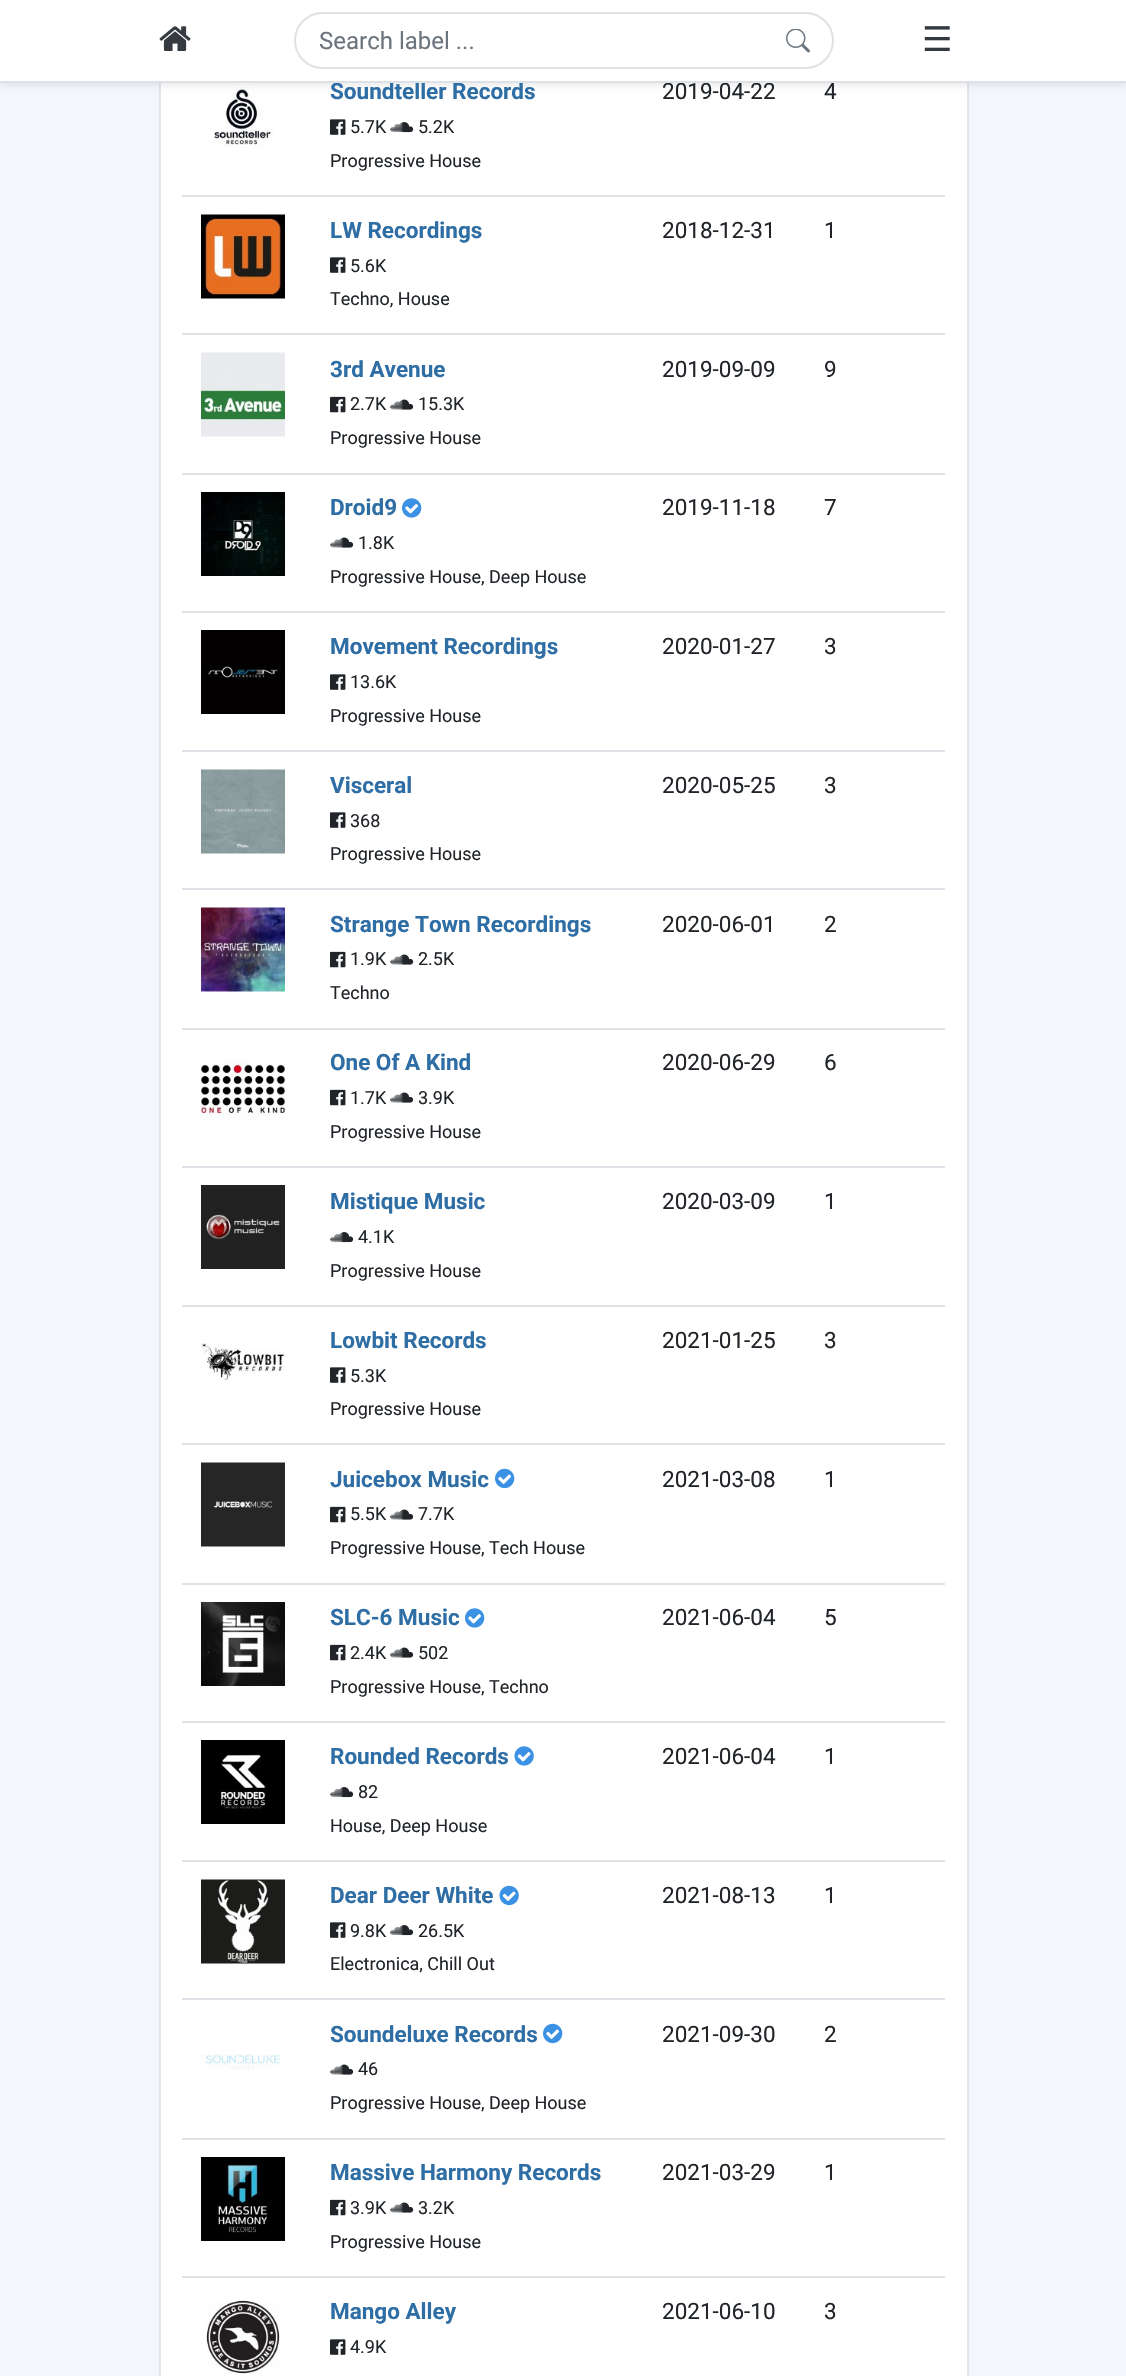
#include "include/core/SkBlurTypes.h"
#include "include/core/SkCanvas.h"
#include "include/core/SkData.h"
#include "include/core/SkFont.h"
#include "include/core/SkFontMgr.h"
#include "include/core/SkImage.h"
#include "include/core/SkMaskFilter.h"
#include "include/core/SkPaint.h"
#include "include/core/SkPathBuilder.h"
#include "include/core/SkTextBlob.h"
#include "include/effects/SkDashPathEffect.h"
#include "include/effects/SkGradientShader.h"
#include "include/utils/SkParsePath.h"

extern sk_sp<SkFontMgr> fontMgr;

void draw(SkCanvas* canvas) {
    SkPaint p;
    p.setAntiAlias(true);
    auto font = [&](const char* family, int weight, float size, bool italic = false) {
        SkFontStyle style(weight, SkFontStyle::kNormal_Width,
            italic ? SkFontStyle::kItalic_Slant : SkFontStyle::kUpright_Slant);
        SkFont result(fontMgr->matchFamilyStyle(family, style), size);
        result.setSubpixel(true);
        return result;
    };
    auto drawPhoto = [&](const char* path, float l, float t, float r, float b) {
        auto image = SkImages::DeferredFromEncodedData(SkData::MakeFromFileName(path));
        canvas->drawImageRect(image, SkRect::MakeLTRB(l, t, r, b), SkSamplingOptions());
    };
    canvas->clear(0xFFF3F7FB);
    p.setColor(0xFFFFFFFF);
    canvas->drawRect(SkRect::MakeLTRB(161, 83, 967, 2376), p);
    p.setStyle(SkPaint::kStroke_Style);
    p.setStrokeWidth(2);
    p.setColor(0xFFE0E6EC);
    canvas->drawRect(SkRect::MakeLTRB(160, -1, 968, 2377), p);
    drawPhoto("media/3.png", 213, 87, 274, 148);
    p.setStyle(SkPaint::kFill_Style);
    p.setColor(0x12000000);
    p.setMaskFilter(SkMaskFilter::MakeBlur(kNormal_SkBlurStyle, 3));
    canvas->drawRect(SkRect::MakeLTRB(0, 3, 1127, 86), p);
    p.setMaskFilter(nullptr);
    p.setColor(0xFFFFFFFF);
    canvas->drawRect(SkRect::MakeLTRB(0, 0, 1126, 81), p);
    auto font1 = font("Roboto", 700, 22.5f);
    p.setColor(0xFF2E6EA5);
    canvas->drawString("Soundteller Records", 330, 99, font1, p);
    auto font2 = font("Roboto", 400, 22.5f);
    p.setColor(0xFF212529);
    canvas->drawString("2019-04-22", 662, 99, font2, p);
    p.setColor(0xFFDEE2E6);
    canvas->drawRect(SkRect::MakeLTRB(0, 81, 1126, 83), p);
    drawPhoto("media/1.png", 159, 26, 191, 51);
    p.setStyle(SkPaint::kStroke_Style);
    canvas->drawRoundRect(SkRect::MakeLTRB(295, 13, 833, 68), 27.5f, 27.5f, p);
    auto font3 = font("Roboto", 400, 24);
    p.setStyle(SkPaint::kFill_Style);
    p.setColor(0xFF6C757D);
    canvas->drawString("Search label ...", 319, 49, font3, p);
    drawPhoto("media/2.png", 786, 29, 810, 53);
    auto font4 = font("DejaVu Sans", 400, 34);
    p.setColor(0xFF343A40);
    canvas->drawString("☰", 922, 51, font4, p);
    drawPhoto("media/4.png", 330, 119, 346, 135);
    auto font5 = font("Roboto", 400, 18);
    p.setColor(0xFF212529);
    canvas->drawString("5.7K", 350, 133, font5, p);
    drawPhoto("media/5.png", 390, 122, 414, 133);
    canvas->drawString("5.2K", 418, 133, font5, p);
    canvas->drawString("Progressive House", 330, 167, font5, p);
    canvas->drawString("4", 824, 99, font2, p);
    drawPhoto("media/6.png", 201, 214, 285, 299);
    p.setColor(0xFF2E6EA5);
    canvas->drawString("LW Recordings", 330, 238, font1, p);
    drawPhoto("media/4.png", 330, 257, 346, 273);
    p.setColor(0xFF212529);
    canvas->drawString("5.6K", 350, 272, font5, p);
    canvas->drawString("Techno, House", 330, 305, font5, p);
    canvas->drawString("2018-12-31", 662, 238, font2, p);
    p.setColor(0xFFDEE2E6);
    canvas->drawRect(SkRect::MakeLTRB(182, 195, 945, 197), p);
    p.setColor(0xFF212529);
    canvas->drawString("1", 824, 238, font2, p);
    drawPhoto("media/7.png", 201, 352, 285, 437);
    p.setColor(0xFF2E6EA5);
    canvas->drawString("3rd Avenue", 330, 377, font1, p);
    drawPhoto("media/8.png", 330, 396, 346, 413);
    p.setColor(0xFF212529);
    canvas->drawString("2.7K", 350, 410, font5, p);
    drawPhoto("media/9.png", 390, 399, 414, 410);
    canvas->drawString("15.3K", 418, 410, font5, p);
    canvas->drawString("Progressive House", 330, 444, font5, p);
    canvas->drawString("2019-09-09", 662, 377, font2, p);
    p.setColor(0xFFDEE2E6);
    canvas->drawRect(SkRect::MakeLTRB(182, 333, 945, 335), p);
    p.setColor(0xFF212529);
    canvas->drawString("9", 824, 377, font2, p);
    drawPhoto("media/10.png", 201, 492, 285, 576);
    p.setColor(0xFF2E6EA5);
    canvas->drawString("Droid9", 330, 515, font1, p);
    drawPhoto("media/11.png", 402, 498, 422, 518);
    drawPhoto("media/9.png", 330, 537, 354, 548);
    p.setColor(0xFF212529);
    canvas->drawString("1.8K", 358, 549, font5, p);
    canvas->drawString("Progressive House, Deep House", 330, 583, font5, p);
    canvas->drawString("2019-11-18", 662, 515, font2, p);
    p.setColor(0xFFDEE2E6);
    canvas->drawRect(SkRect::MakeLTRB(182, 473, 945, 475), p);
    p.setColor(0xFF212529);
    canvas->drawString("7", 824, 515, font2, p);
    drawPhoto("media/12.png", 201, 630, 285, 714);
    p.setColor(0xFF2E6EA5);
    canvas->drawString("Movement Recordings", 330, 654, font1, p);
    drawPhoto("media/4.png", 330, 674, 346, 690);
    p.setColor(0xFF212529);
    canvas->drawString("13.6K", 350, 688, font5, p);
    canvas->drawString("Progressive House", 330, 722, font5, p);
    canvas->drawString("2020-01-27", 662, 654, font2, p);
    p.setColor(0xFFDEE2E6);
    canvas->drawRect(SkRect::MakeLTRB(182, 611, 945, 613), p);
    p.setColor(0xFF212529);
    canvas->drawString("3", 824, 654, font2, p);
    drawPhoto("media/13.png", 201, 769, 285, 854);
    p.setColor(0xFF2E6EA5);
    canvas->drawString("Visceral", 330, 793, font1, p);
    drawPhoto("media/4.png", 330, 812, 346, 828);
    p.setColor(0xFF212529);
    canvas->drawString("368", 350, 827, font5, p);
    canvas->drawString("Progressive House", 330, 860, font5, p);
    canvas->drawString("2020-05-25", 662, 793, font2, p);
    p.setColor(0xFFDEE2E6);
    canvas->drawRect(SkRect::MakeLTRB(182, 750, 945, 752), p);
    p.setColor(0xFF212529);
    canvas->drawString("3", 824, 793, font2, p);
    drawPhoto("media/14.png", 201, 907, 285, 992);
    p.setColor(0xFF2E6EA5);
    canvas->drawString("Strange Town Recordings", 330, 932, font1, p);
    drawPhoto("media/8.png", 330, 951, 346, 968);
    p.setColor(0xFF212529);
    canvas->drawString("1.9K", 350, 965, font5, p);
    drawPhoto("media/9.png", 390, 954, 414, 965);
    canvas->drawString("2.5K", 418, 965, font5, p);
    canvas->drawString("Techno", 330, 999, font5, p);
    canvas->drawString("2020-06-01", 662, 932, font2, p);
    p.setColor(0xFFDEE2E6);
    canvas->drawRect(SkRect::MakeLTRB(182, 888, 945, 890), p);
    p.setColor(0xFF212529);
    canvas->drawString("2", 824, 932, font2, p);
    drawPhoto("media/15.png", 201, 1059, 285, 1120);
    p.setColor(0xFF2E6EA5);
    canvas->drawString("One Of A Kind", 330, 1070, font1, p);
    drawPhoto("media/8.png", 330, 1089, 346, 1106);
    p.setColor(0xFF212529);
    canvas->drawString("1.7K", 350, 1104, font5, p);
    drawPhoto("media/9.png", 390, 1092, 414, 1103);
    canvas->drawString("3.9K", 418, 1104, font5, p);
    canvas->drawString("Progressive House", 330, 1138, font5, p);
    canvas->drawString("2020-06-29", 662, 1070, font2, p);
    p.setColor(0xFFDEE2E6);
    canvas->drawRect(SkRect::MakeLTRB(182, 1028, 945, 1030), p);
    p.setColor(0xFF212529);
    canvas->drawString("6", 824, 1070, font2, p);
    drawPhoto("media/16.png", 201, 1185, 285, 1269);
    p.setColor(0xFF2E6EA5);
    canvas->drawString("Mistique Music", 330, 1209, font1, p);
    drawPhoto("media/5.png", 330, 1232, 354, 1243);
    p.setColor(0xFF212529);
    canvas->drawString("4.1K", 358, 1243, font5, p);
    canvas->drawString("Progressive House", 330, 1277, font5, p);
    canvas->drawString("2020-03-09", 662, 1209, font2, p);
    p.setColor(0xFFDEE2E6);
    canvas->drawRect(SkRect::MakeLTRB(182, 1166, 945, 1168), p);
    p.setColor(0xFF212529);
    canvas->drawString("1", 824, 1209, font2, p);
    p.setColor(0xFF2E6EA5);
    canvas->drawString("Lowbit Records", 330, 1348, font1, p);
    drawPhoto("media/4.png", 330, 1367, 346, 1383);
    p.setColor(0xFF212529);
    canvas->drawString("5.3K", 350, 1382, font5, p);
    canvas->drawString("Progressive House", 330, 1415, font5, p);
    canvas->drawString("2021-01-25", 662, 1348, font2, p);
    p.setColor(0xFFDEE2E6);
    canvas->drawRect(SkRect::MakeLTRB(182, 1305, 945, 1307), p);
    p.setColor(0xFF212529);
    canvas->drawString("3", 824, 1348, font2, p);
    drawPhoto("media/17.png", 201, 1343, 285, 1380);
    drawPhoto("media/18.png", 201, 1462, 285, 1547);
    p.setColor(0xFF2E6EA5);
    canvas->drawString("Juicebox Music", 330, 1487, font1, p);
    drawPhoto("media/19.png", 495, 1468, 515, 1489);
    drawPhoto("media/8.png", 330, 1506, 346, 1523);
    p.setColor(0xFF212529);
    canvas->drawString("5.5K", 350, 1520, font5, p);
    drawPhoto("media/9.png", 390, 1509, 414, 1520);
    canvas->drawString("7.7K", 418, 1520, font5, p);
    canvas->drawString("Progressive House, Tech House", 330, 1554, font5, p);
    canvas->drawString("2021-03-08", 662, 1487, font2, p);
    p.setColor(0xFFDEE2E6);
    canvas->drawRect(SkRect::MakeLTRB(182, 1443, 945, 1445), p);
    p.setColor(0xFF212529);
    canvas->drawString("1", 824, 1487, font2, p);
    drawPhoto("media/20.png", 201, 1602, 285, 1686);
    p.setColor(0xFF2E6EA5);
    canvas->drawString("SLC-6 Music", 330, 1625, font1, p);
    drawPhoto("media/11.png", 465, 1608, 485, 1628);
    drawPhoto("media/8.png", 330, 1644, 346, 1661);
    p.setColor(0xFF212529);
    canvas->drawString("2.4K", 350, 1659, font5, p);
    drawPhoto("media/9.png", 390, 1647, 414, 1658);
    canvas->drawString("502", 418, 1659, font5, p);
    canvas->drawString("Progressive House, Techno", 330, 1693, font5, p);
    canvas->drawString("2021-06-04", 662, 1625, font2, p);
    p.setColor(0xFFDEE2E6);
    canvas->drawRect(SkRect::MakeLTRB(182, 1583, 945, 1585), p);
    p.setColor(0xFF212529);
    canvas->drawString("5", 824, 1625, font2, p);
    drawPhoto("media/21.png", 201, 1740, 285, 1824);
    p.setColor(0xFF2E6EA5);
    canvas->drawString("Rounded Records", 330, 1764, font1, p);
    drawPhoto("media/22.png", 514, 1746, 534, 1766);
    drawPhoto("media/5.png", 330, 1787, 354, 1798);
    p.setColor(0xFF212529);
    canvas->drawString("82", 358, 1798, font5, p);
    canvas->drawString("House, Deep House", 330, 1832, font5, p);
    canvas->drawString("2021-06-04", 662, 1764, font2, p);
    p.setColor(0xFFDEE2E6);
    canvas->drawRect(SkRect::MakeLTRB(182, 1721, 945, 1723), p);
    p.setColor(0xFF212529);
    canvas->drawString("1", 824, 1764, font2, p);
    drawPhoto("media/23.png", 201, 1879, 285, 1964);
    p.setColor(0xFF2E6EA5);
    canvas->drawString("Dear Deer White", 330, 1903, font1, p);
    drawPhoto("media/24.png", 499, 1885, 519, 1906);
    drawPhoto("media/4.png", 330, 1922, 346, 1938);
    p.setColor(0xFF212529);
    canvas->drawString("9.8K", 350, 1937, font5, p);
    drawPhoto("media/5.png", 390, 1925, 414, 1936);
    canvas->drawString("26.5K", 418, 1937, font5, p);
    canvas->drawString("Electronica, Chill Out", 330, 1970, font5, p);
    canvas->drawString("2021-08-13", 662, 1903, font2, p);
    p.setColor(0xFFDEE2E6);
    canvas->drawRect(SkRect::MakeLTRB(182, 1860, 945, 1862), p);
    p.setColor(0xFF212529);
    canvas->drawString("1", 824, 1903, font2, p);
    p.setColor(0xFF2E6EA5);
    canvas->drawString("Soundeluxe Records", 330, 2042, font1, p);
    drawPhoto("media/19.png", 543, 2023, 563, 2044);
    drawPhoto("media/9.png", 330, 2064, 354, 2075);
    p.setColor(0xFF212529);
    canvas->drawString("46", 358, 2075, font5, p);
    canvas->drawString("Progressive House, Deep House", 330, 2109, font5, p);
    canvas->drawString("2021-09-30", 662, 2042, font2, p);
    p.setColor(0xFFDEE2E6);
    canvas->drawRect(SkRect::MakeLTRB(182, 1998, 945, 2000), p);
    p.setColor(0xFF212529);
    canvas->drawString("2", 824, 2042, font2, p);
    drawPhoto("media/25.png", 201, 2054, 281, 2070);
    drawPhoto("media/26.png", 201, 2157, 285, 2241);
    p.setColor(0xFF2E6EA5);
    canvas->drawString("Massive Harmony Records", 330, 2180, font1, p);
    drawPhoto("media/8.png", 330, 2199, 346, 2216);
    p.setColor(0xFF212529);
    canvas->drawString("3.9K", 350, 2214, font5, p);
    drawPhoto("media/9.png", 390, 2202, 414, 2213);
    canvas->drawString("3.2K", 418, 2214, font5, p);
    canvas->drawString("Progressive House", 330, 2248, font5, p);
    canvas->drawString("2021-03-29", 662, 2180, font2, p);
    p.setColor(0xFFDEE2E6);
    canvas->drawRect(SkRect::MakeLTRB(182, 2138, 945, 2140), p);
    p.setColor(0xFF212529);
    canvas->drawString("1", 824, 2180, font2, p);
    drawPhoto("media/27.png", 206, 2300, 280, 2374);
    p.setColor(0xFF2E6EA5);
    canvas->drawString("Mango Alley", 330, 2319, font1, p);
    drawPhoto("media/4.png", 330, 2339, 346, 2355);
    p.setColor(0xFF212529);
    canvas->drawString("4.9K", 350, 2353, font5, p);
    canvas->drawString("2021-06-10", 662, 2319, font2, p);
    p.setColor(0xFFDEE2E6);
    canvas->drawRect(SkRect::MakeLTRB(182, 2276, 945, 2278), p);
    p.setColor(0xFF212529);
    canvas->drawString("3", 824, 2319, font2, p);
}
